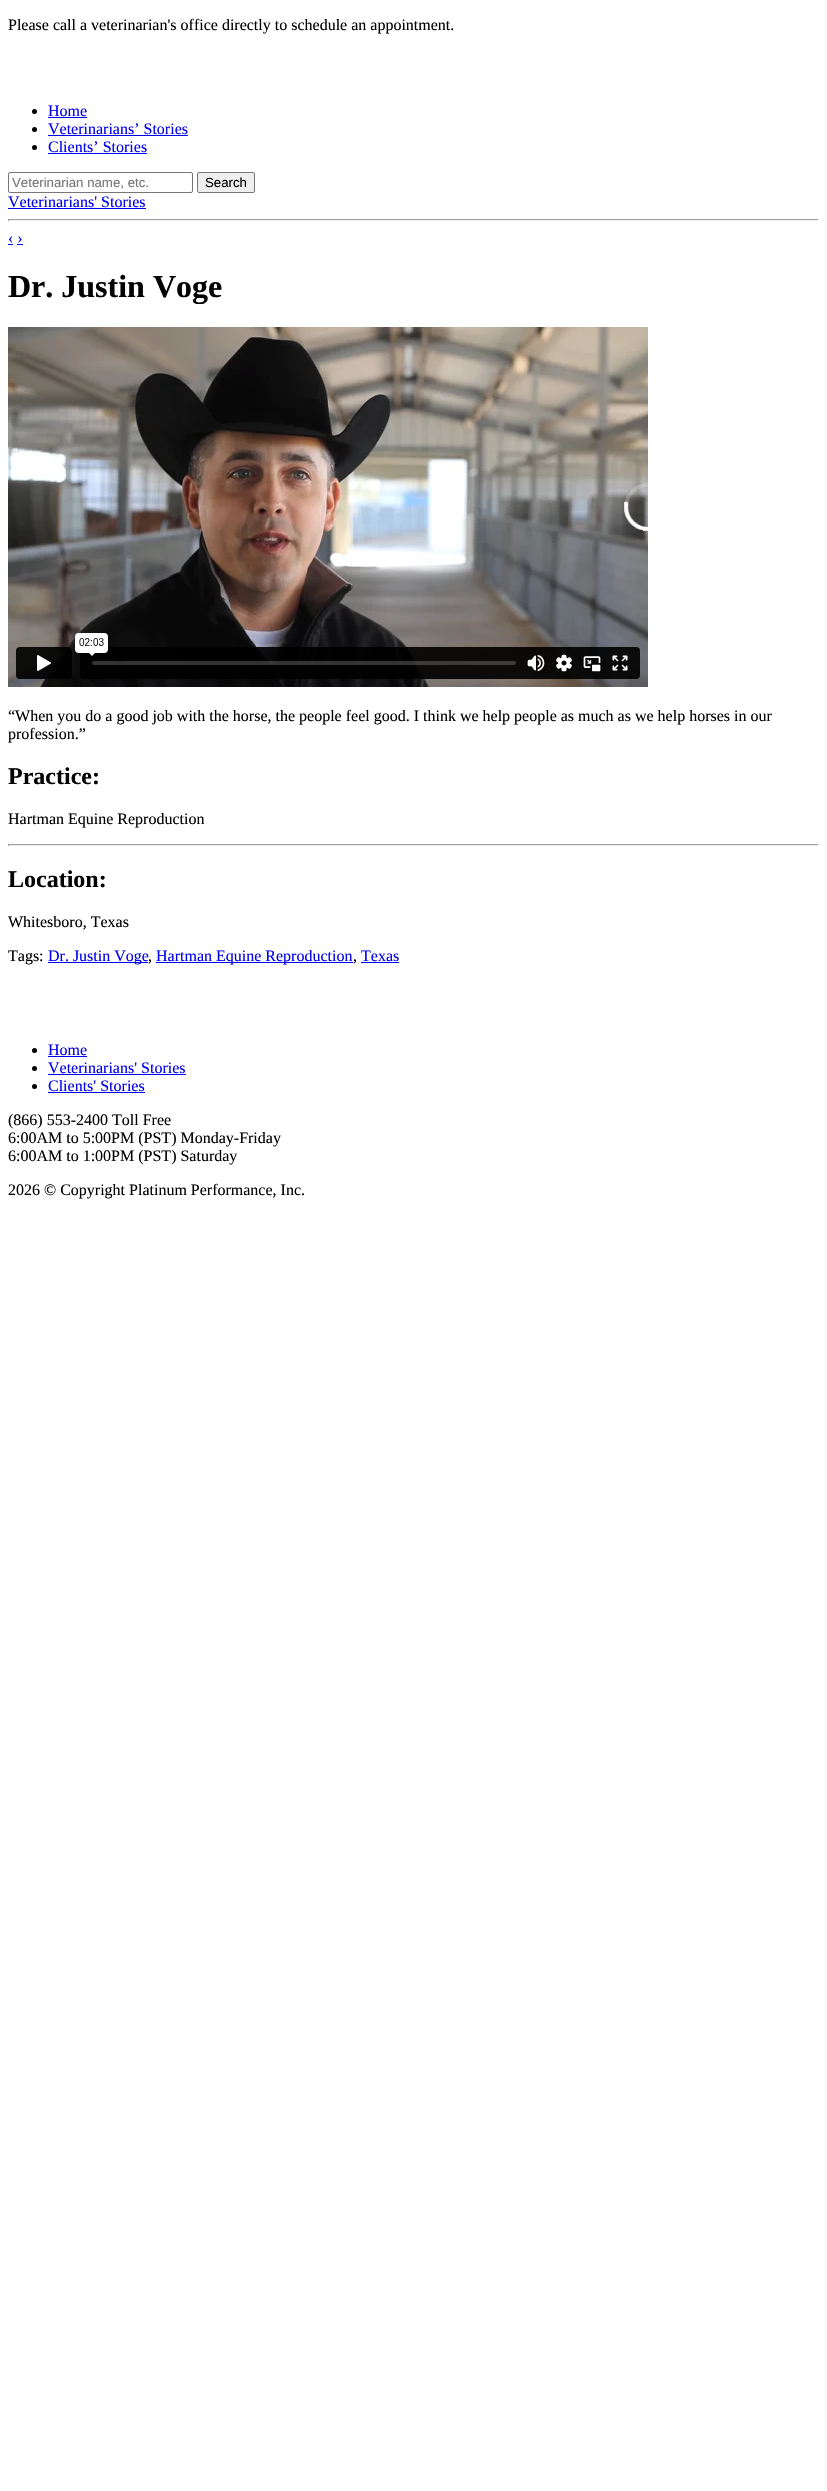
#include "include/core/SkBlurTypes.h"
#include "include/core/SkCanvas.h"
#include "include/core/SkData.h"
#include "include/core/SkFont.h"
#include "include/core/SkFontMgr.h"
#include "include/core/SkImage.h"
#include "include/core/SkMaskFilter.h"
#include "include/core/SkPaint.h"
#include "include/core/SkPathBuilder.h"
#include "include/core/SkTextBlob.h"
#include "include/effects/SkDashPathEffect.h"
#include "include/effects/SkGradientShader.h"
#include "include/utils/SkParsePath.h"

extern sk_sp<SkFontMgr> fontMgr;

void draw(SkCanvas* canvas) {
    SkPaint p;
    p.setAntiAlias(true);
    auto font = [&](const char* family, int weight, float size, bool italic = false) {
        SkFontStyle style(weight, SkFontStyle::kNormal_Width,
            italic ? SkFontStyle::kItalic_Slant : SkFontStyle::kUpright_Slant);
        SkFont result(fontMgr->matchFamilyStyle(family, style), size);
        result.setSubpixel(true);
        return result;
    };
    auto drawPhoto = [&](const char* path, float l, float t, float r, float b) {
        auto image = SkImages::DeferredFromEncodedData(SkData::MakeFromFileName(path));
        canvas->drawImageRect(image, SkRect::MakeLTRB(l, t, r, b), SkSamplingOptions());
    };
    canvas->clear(0xFFFFFFFF);
    auto font1 = font("Liberation Serif", 400, 16);
    p.setColor(0xFF000000);
    canvas->drawString("Please call a veterinarian's office directly to schedule an appointment.", 8, 30, font1, p);
    canvas->drawCircle(34.5f, 111.5f, 2.5f, p);
    p.setColor(0xFF0000EE);
    canvas->drawString("Home", 48, 116, font1, p);
    canvas->drawRect(SkRect::MakeLTRB(48, 117, 87, 118), p);
    p.setColor(0xFF000000);
    canvas->drawCircle(34.5f, 129.5f, 2.5f, p);
    p.setColor(0xFF0000EE);
    canvas->drawString("Veterinarians’ Stories", 48, 134, font1, p);
    canvas->drawRect(SkRect::MakeLTRB(48, 135, 188, 136), p);
    p.setColor(0xFF000000);
    canvas->drawCircle(34.5f, 147.5f, 2.5f, p);
    p.setColor(0xFF0000EE);
    canvas->drawString("Clients’ Stories", 48, 152, font1, p);
    canvas->drawRect(SkRect::MakeLTRB(48, 153, 147, 154), p);
    p.setStyle(SkPaint::kStroke_Style);
    p.setStrokeWidth(1);
    p.setColor(0xFF767676);
    canvas->drawRoundRect(SkRect::MakeLTRB(8.5f, 172.5f, 192.5f, 192.5f), 1.5f, 1.5f, p);
    auto font2 = font("Liberation Sans", 400, 13.25f);
    p.setStyle(SkPaint::kFill_Style);
    p.setColor(0xFF757575);
    canvas->drawString("Veterinarian name, etc.", 12, 187, font2, p);
    p.setColor(0xFFEFEFEF);
    canvas->drawRoundRect(SkRect::MakeLTRB(197.5f, 172.5f, 254.5f, 192.5f), 1.5f, 1.5f, p);
    p.setStyle(SkPaint::kStroke_Style);
    p.setColor(0xFF767676);
    canvas->drawRoundRect(SkRect::MakeLTRB(197.5f, 172.5f, 254.5f, 192.5f), 1.5f, 1.5f, p);
    p.setStyle(SkPaint::kFill_Style);
    p.setColor(0xFF000000);
    canvas->drawString("Search", 205, 187, font2, p);
    p.setColor(0xFF0000EE);
    canvas->drawString("Veterinarians' Stories", 8, 207, font1, p);
    {
        const struct { float l, t, r, b; SkColor color; } items[] = {
            {8, 208, 146, 209, 0xFF0000EE},
            {8, 219, 819, 220, 0xFF9F9F9F},
            {818, 219, 819, 221, 0xFFEEEEEE},
            {8, 220, 819, 221, 0xFFEEEEEE},
            {8, 219, 9, 221, 0xFF9F9F9F},
        };
        for (auto [l, t, r, b, color] : items) {
            p.setColor(color);
            canvas->drawRect(SkRect::MakeLTRB(l, t, r, b), p);
        }
    }
    p.setColor(0xFF0000EE);
    canvas->drawString("‹ ›", 8, 243, font1, p);
    canvas->drawRect(SkRect::MakeLTRB(8, 244, 13, 245), p);
    canvas->drawRect(SkRect::MakeLTRB(17, 244, 23, 245), p);
    auto font3 = font("Liberation Serif", 700, 32);
    p.setColor(0xFF000000);
    canvas->drawString("Dr. Justin Voge", 8, 297, font3, p);
    drawPhoto("media/1.png", 8, 327, 648, 687);
    canvas->drawString("“When you do a good job with the horse, the people feel good. I think we help people as much as we help horses in our", 8, 721, font1, p);
    canvas->drawString("profession.”", 8, 739, font1, p);
    auto font4 = font("Liberation Serif", 700, 24);
    canvas->drawString("Practice:", 8, 784, font4, p);
    canvas->drawString("Hartman Equine Reproduction", 8, 824, font1, p);
    {
        const struct { float l, t, r, b; SkColor color; } items[] = {
            {8, 844, 819, 845, 0xFF9F9F9F},
            {818, 844, 819, 846, 0xFFEEEEEE},
            {8, 845, 819, 846, 0xFFEEEEEE},
            {8, 844, 9, 846, 0xFF9F9F9F},
        };
        for (auto [l, t, r, b, color] : items) {
            p.setColor(color);
            canvas->drawRect(SkRect::MakeLTRB(l, t, r, b), p);
        }
    }
    p.setColor(0xFF000000);
    canvas->drawString("Location:", 8, 887, font4, p);
    canvas->drawString("Whitesboro, Texas", 8, 927, font1, p);
    canvas->drawString("Tags:", 8, 961, font1, p);
    p.setColor(0xFF0000EE);
    canvas->drawRect(SkRect::MakeLTRB(48, 962, 148, 963), p);
    canvas->drawString("Dr. Justin Voge", 48, 961, font1, p);
    p.setColor(0xFF000000);
    canvas->drawString(",", 148, 961, font1, p);
    p.setColor(0xFF0000EE);
    canvas->drawRect(SkRect::MakeLTRB(156, 962, 353, 963), p);
    canvas->drawString("Hartman Equine Reproduction", 156, 961, font1, p);
    p.setColor(0xFF000000);
    canvas->drawString(",", 353, 961, font1, p);
    p.setColor(0xFF0000EE);
    canvas->drawString("Texas", 361, 961, font1, p);
    canvas->drawRect(SkRect::MakeLTRB(361, 962, 399, 963), p);
    p.setColor(0xFF000000);
    canvas->drawCircle(34.5f, 1050.5f, 2.5f, p);
    p.setColor(0xFF0000EE);
    canvas->drawString("Home", 48, 1055, font1, p);
    canvas->drawRect(SkRect::MakeLTRB(48, 1056, 87, 1057), p);
    p.setColor(0xFF000000);
    canvas->drawCircle(34.5f, 1068.5f, 2.5f, p);
    p.setColor(0xFF0000EE);
    canvas->drawString("Veterinarians' Stories", 48, 1073, font1, p);
    canvas->drawRect(SkRect::MakeLTRB(48, 1074, 186, 1075), p);
    p.setColor(0xFF000000);
    canvas->drawCircle(34.5f, 1086.5f, 2.5f, p);
    p.setColor(0xFF0000EE);
    canvas->drawString("Clients' Stories", 48, 1091, font1, p);
    canvas->drawRect(SkRect::MakeLTRB(48, 1092, 145, 1093), p);
    p.setColor(0xFF000000);
    {
        const struct { const char* s; float x, y; } items[] = {
            {"(866) 553-2400 Toll Free", 8, 1125},
            {"6:00AM to 5:00PM (PST) Monday-Friday", 8, 1143},
            {"6:00AM to 1:00PM (PST) Saturday", 8, 1161},
            {"2026 © Copyright Platinum Performance, Inc.", 8, 1195},
        };
        for (auto [s, x, y] : items) {
            canvas->drawString(s, x, y, font1, p);
        }
    }
}
